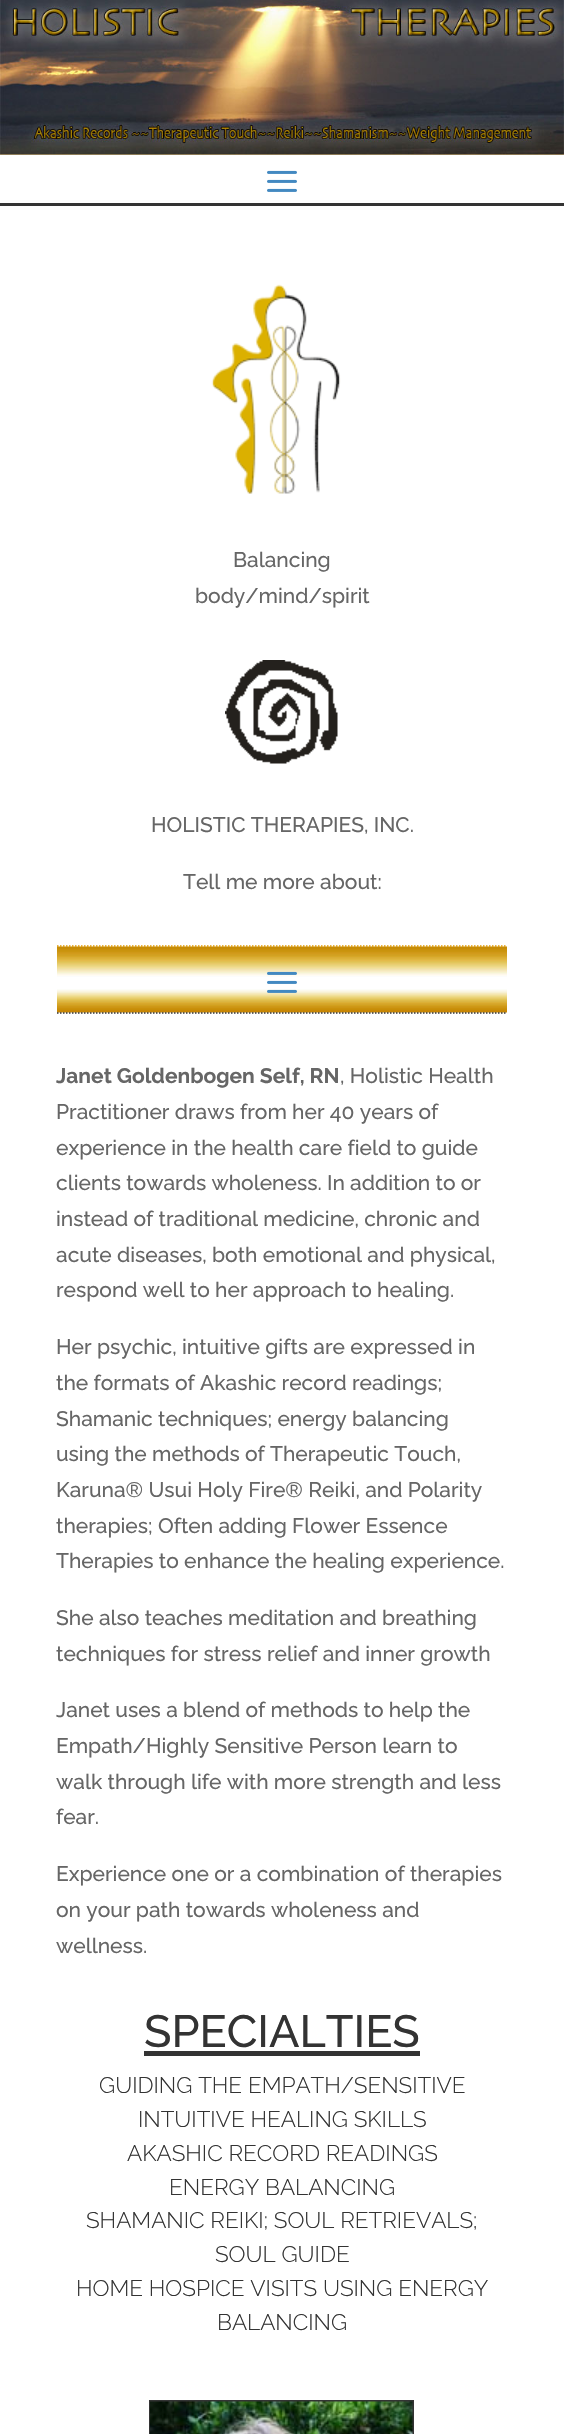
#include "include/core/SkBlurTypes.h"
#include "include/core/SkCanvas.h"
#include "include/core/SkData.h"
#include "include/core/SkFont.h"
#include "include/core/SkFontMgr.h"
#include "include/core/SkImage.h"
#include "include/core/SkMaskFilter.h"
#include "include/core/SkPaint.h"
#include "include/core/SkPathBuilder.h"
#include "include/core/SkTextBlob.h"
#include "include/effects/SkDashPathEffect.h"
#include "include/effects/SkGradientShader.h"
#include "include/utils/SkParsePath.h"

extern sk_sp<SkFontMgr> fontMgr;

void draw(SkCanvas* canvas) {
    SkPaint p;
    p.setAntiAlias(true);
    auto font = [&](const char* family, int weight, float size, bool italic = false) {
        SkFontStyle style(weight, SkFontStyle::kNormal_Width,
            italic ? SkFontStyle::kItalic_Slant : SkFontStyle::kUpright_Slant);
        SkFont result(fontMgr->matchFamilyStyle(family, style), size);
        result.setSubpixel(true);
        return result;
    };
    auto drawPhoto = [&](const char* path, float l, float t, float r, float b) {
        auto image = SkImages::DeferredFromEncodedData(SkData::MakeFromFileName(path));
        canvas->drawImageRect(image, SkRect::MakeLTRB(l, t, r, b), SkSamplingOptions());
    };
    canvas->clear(0xFFFFFFFF);
    drawPhoto("media/1.png", 0, 154, 564, 155);
    drawPhoto("media/2.png", 0, 0, 564, 155);
    p.setColor(0xFF333333);
    canvas->drawRect(SkRect::MakeLTRB(0, 203, 564, 206), p);
    drawPhoto("media/3.png", 267, 170, 297, 192);
    drawPhoto("media/4.png", 211, 284, 341, 494);
    auto font1 = font("Raleway", 500, 21);
    p.setColor(0xFF666666);
    canvas->drawString("Balancing", 233, 567, font1, p);
    canvas->drawString("body/mind/spirit", 195, 603, font1, p);
    drawPhoto("media/5.png", 225, 660, 338, 764);
    canvas->drawString("HOLISTIC THERAPIES, INC.", 151, 832, font1, p);
    canvas->drawString("Tell me more about:", 183, 889, font1, p);
    drawPhoto("media/6.png", 57, 946, 507, 1013);
    p.setStyle(SkPaint::kStroke_Style);
    p.setStrokeWidth(1.5f);
    p.setColor(0xFFE09900);
    p.setPathEffect(SkDashPathEffect::Make({{1.5f, 1.5f}}, 0));
    canvas->drawPath(SkPathBuilder().moveTo(57, 946).lineTo(507, 946).detach(), p);
    p.setPathEffect(nullptr);
    p.setColor(0xFF333333);
    p.setPathEffect(SkDashPathEffect::Make({{1.5f, 1.5f}}, 0));
    canvas->drawPath(SkPathBuilder().moveTo(57, 1013).lineTo(507, 1013).detach(), p);
    p.setPathEffect(nullptr);
    drawPhoto("media/7.png", 267, 971, 297, 993);
    auto font2 = font("Raleway", 700, 21);
    p.setStyle(SkPaint::kFill_Style);
    p.setColor(0xFF666666);
    canvas->drawString("Janet Goldenbogen Self, RN", 56, 1083, font2, p);
    {
        const struct { const char* s; float x, y; } items[] = {
            {", Holistic Health", 340, 1083},
            {"Practitioner draws from her 40 years of", 56, 1119},
            {"experience in the health care field to guide", 56, 1155},
            {"clients towards wholeness. In addition to or", 56, 1190},
            {"instead of traditional medicine, chronic and", 56, 1226},
            {"acute diseases, both emotional and physical,", 56, 1262},
            {"respond well to her approach to healing.", 56, 1297},
            {"Her psychic, intuitive gifts are expressed in", 56, 1354},
            {"the formats of Akashic record readings;", 56, 1390},
            {"Shamanic techniques; energy balancing", 56, 1426},
            {"using the methods of Therapeutic Touch,", 56, 1461},
            {"Karuna® Usui Holy Fire® Reiki, and Polarity", 56, 1497},
            {"therapies; Often adding Flower Essence", 56, 1533},
            {"Therapies to enhance the healing experience.", 56, 1568},
            {"She also teaches meditation and breathing", 56, 1625},
            {"techniques for stress relief and inner growth", 56, 1661},
            {"Janet uses a blend of methods to help the", 56, 1717},
            {"Empath/Highly Sensitive Person learn to", 56, 1753},
            {"walk through life with more strength and less", 56, 1789},
            {"fear.", 56, 1824},
            {"Experience one or a combination of therapies", 56, 1881},
            {"on your path towards wholeness and", 56, 1917},
            {"wellness.", 56, 1953},
        };
        for (auto [s, x, y] : items) {
            canvas->drawString(s, x, y, font1, p);
        }
    }
    auto font3 = font("Raleway", 500, 45);
    p.setColor(0xFF333333);
    canvas->drawString("SPECIALTIES", 144, 2047, font3, p);
    canvas->drawRect(SkRect::MakeLTRB(144, 2051, 420, 2056), p);
    auto font4 = font("Raleway", 300, 22.5f);
    {
        const struct { const char* s; float x, y; } items[] = {
            {"GUIDING THE EMPATH/SENSITIVE", 99, 2093},
            {"INTUITIVE HEALING SKILLS", 138, 2127},
            {"AKASHIC RECORD READINGS", 127, 2161},
            {"ENERGY BALANCING", 169, 2195},
            {"SHAMANIC REIKI; SOUL RETRIEVALS;", 86, 2228},
            {"SOUL GUIDE", 215, 2262},
            {"HOME HOSPICE VISITS USING ENERGY", 76, 2296},
            {"BALANCING", 217, 2330},
        };
        for (auto [s, x, y] : items) {
            canvas->drawString(s, x, y, font4, p);
        }
    }
    p.setStyle(SkPaint::kStroke_Style);
    p.setStrokeWidth(2);
    canvas->drawRect(SkRect::MakeLTRB(150, 2401, 413, 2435), p);
    drawPhoto("media/8.png", 150, 2401, 413, 2434);
}
